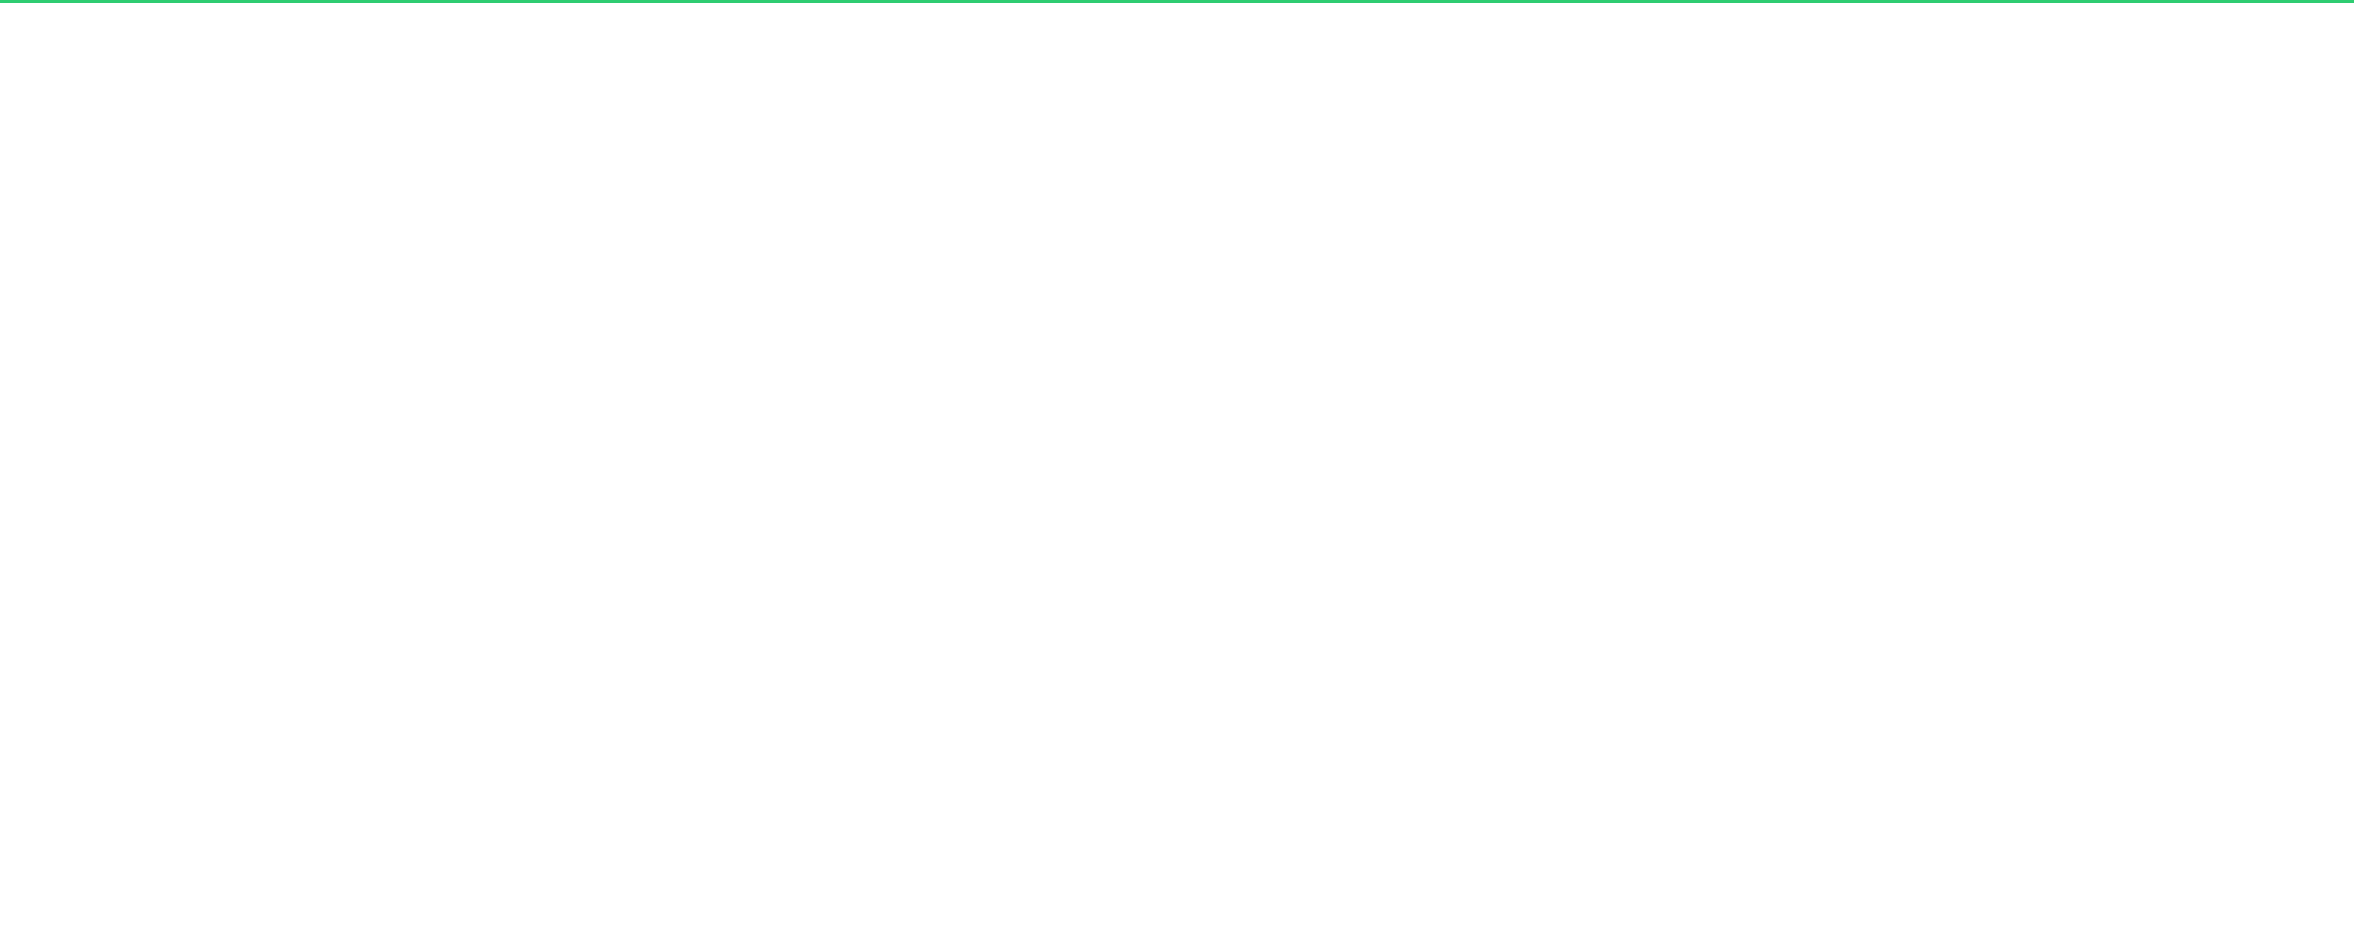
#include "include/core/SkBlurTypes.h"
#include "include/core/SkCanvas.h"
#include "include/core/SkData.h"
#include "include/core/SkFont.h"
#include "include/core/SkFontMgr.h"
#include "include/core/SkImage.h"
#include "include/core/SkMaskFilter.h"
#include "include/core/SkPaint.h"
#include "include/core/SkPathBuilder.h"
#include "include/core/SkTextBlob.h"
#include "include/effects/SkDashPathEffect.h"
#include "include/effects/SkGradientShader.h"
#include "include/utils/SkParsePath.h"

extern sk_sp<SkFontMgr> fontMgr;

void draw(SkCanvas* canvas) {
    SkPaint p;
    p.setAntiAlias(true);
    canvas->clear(0xFF2ECC71);
    p.setColor(0xFFFFFFFF);
    canvas->drawRect(SkRect::MakeLTRB(0, 3, 2354, 939), p);
}
